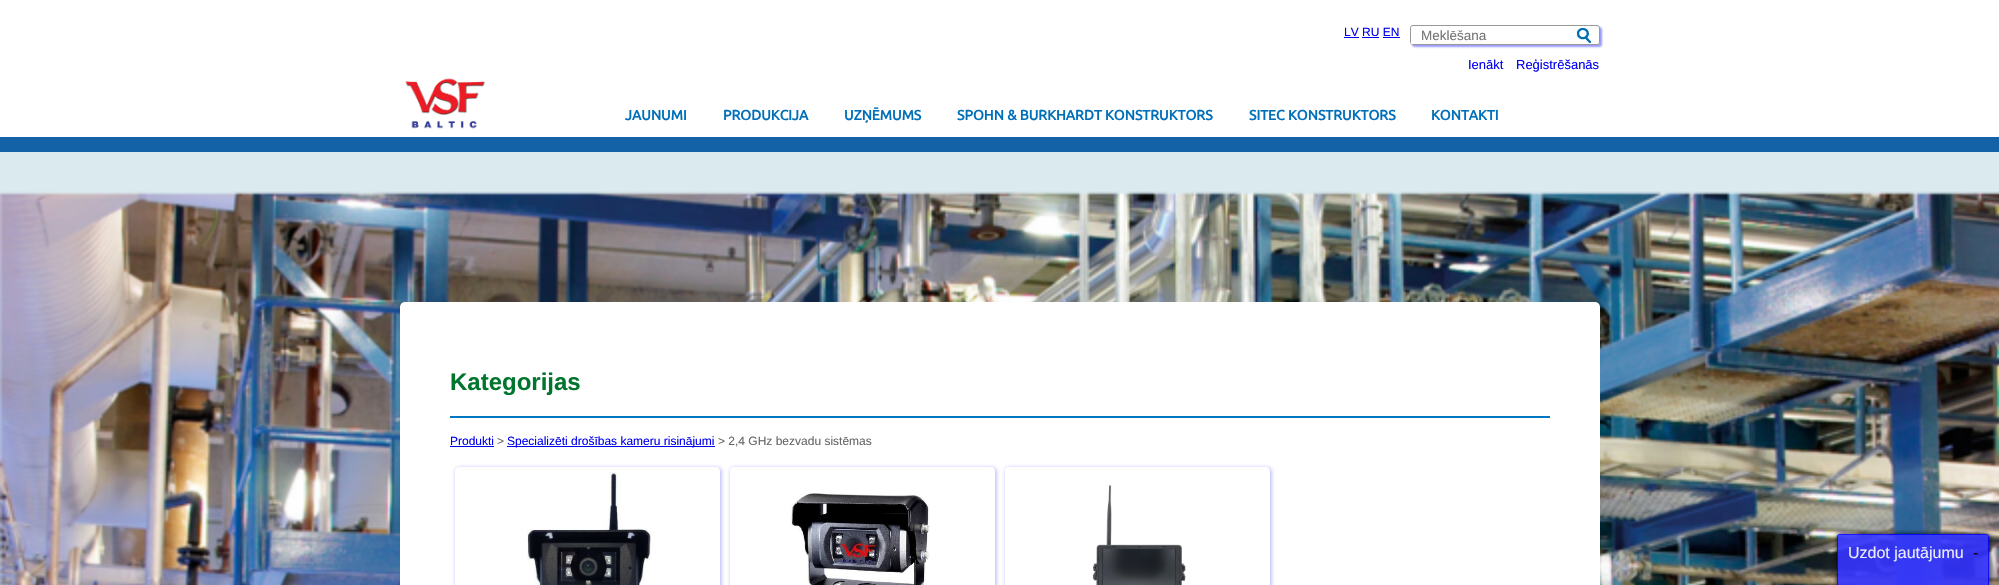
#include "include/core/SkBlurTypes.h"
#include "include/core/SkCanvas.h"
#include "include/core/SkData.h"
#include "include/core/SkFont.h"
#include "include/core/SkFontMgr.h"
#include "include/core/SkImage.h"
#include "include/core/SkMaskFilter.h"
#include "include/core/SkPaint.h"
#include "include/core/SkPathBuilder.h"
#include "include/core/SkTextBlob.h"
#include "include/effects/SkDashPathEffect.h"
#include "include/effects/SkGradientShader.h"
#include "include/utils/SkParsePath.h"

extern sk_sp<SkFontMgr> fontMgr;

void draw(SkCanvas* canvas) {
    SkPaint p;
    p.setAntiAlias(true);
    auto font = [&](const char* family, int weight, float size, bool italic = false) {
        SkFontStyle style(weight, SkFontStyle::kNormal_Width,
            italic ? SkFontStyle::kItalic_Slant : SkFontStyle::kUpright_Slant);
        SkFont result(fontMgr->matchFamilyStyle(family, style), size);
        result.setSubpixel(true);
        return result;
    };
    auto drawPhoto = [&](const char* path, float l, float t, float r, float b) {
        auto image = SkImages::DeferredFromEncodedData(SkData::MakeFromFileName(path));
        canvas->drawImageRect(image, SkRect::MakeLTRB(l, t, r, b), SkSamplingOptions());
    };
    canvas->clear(0xFFFFFFFF);
    p.setColor(0xFF1362A7);
    canvas->drawRect(SkRect::MakeLTRB(0, 137, 1999, 152), p);
    auto font1 = font("Liberation Sans", 400, 12);
    p.setColor(0xFF0000EE);
    canvas->drawString("LV RU EN", 1344, 36, font1, p);
    {
        const struct { float l, t, r, b; SkColor color; } items[] = {
            {1344, 37, 1359, 38, 0xFF0000EE},
            {1362, 37, 1379, 38, 0xFF0000EE},
            {1383, 37, 1400, 38, 0xFF0000EE},
        };
        for (auto [l, t, r, b, color] : items) {
            p.setColor(color);
            canvas->drawRect(SkRect::MakeLTRB(l, t, r, b), p);
        }
    }
    canvas->save();
    canvas->clipPath(SkPathBuilder(SkPathFillType::kEvenOdd).moveTo(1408, 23).lineTo(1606, 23).lineTo(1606, 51).lineTo(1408, 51).close().moveTo(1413, 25).lineTo(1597, 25).cubicTo(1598.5f, 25, 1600, 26.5f, 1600, 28).lineTo(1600, 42).cubicTo(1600, 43.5f, 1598.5f, 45, 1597, 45).lineTo(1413, 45).cubicTo(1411.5f, 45, 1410, 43.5f, 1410, 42).lineTo(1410, 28).cubicTo(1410, 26.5f, 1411.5f, 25, 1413, 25).close().detach(), true);
    p.setColor(0xFF9999FF);
    p.setMaskFilter(SkMaskFilter::MakeBlur(kNormal_SkBlurStyle, 1));
    canvas->drawRoundRect(SkRect::MakeLTRB(1412, 27, 1602, 47), 3, 3, p);
    p.setMaskFilter(nullptr);
    canvas->restore();
    p.setStyle(SkPaint::kStroke_Style);
    p.setStrokeWidth(1);
    p.setColor(0xFF999999);
    canvas->drawRoundRect(SkRect::MakeLTRB(1410.5f, 25.5f, 1599.5f, 44.5f), 2.5f, 2.5f, p);
    p.setStyle(SkPaint::kFill_Style);
    p.setColor(0xFFFFFFFF);
    canvas->drawRect(SkRect::MakeLTRB(1411, 27, 1413, 44), p);
    auto font2 = font("Liberation Sans", 400, 13.5f);
    p.setColor(0xFF757575);
    canvas->drawString("Meklēšana", 1421, 40, font2, p);
    drawPhoto("media/1.png", 1577, 28, 1591, 43);
    auto font3 = font("Liberation Sans", 400, 13);
    p.setColor(0xFF0000EE);
    canvas->drawString("Ienākt", 1468, 69, font3, p);
    canvas->drawString("Reģistrēšanās", 1516, 69, font3, p);
    drawPhoto("media/2.png", 405, 78, 485, 129);
    auto font4 = font("Ubuntu", 700, 14);
    p.setColor(0xFF006FB9);
    {
        const struct { const char* s; float x, y; } items[] = {
            {"JAUNUMI", 625, 120},
            {"PRODUKCIJA", 723, 120},
            {"UZŅĒMUMS", 844, 120},
            {"SPOHN & BURKHARDT KONSTRUKTORS", 957, 120},
            {"SITEC KONSTRUKTORS", 1249, 120},
            {"KONTAKTI", 1431, 120},
        };
        for (auto [s, x, y] : items) {
            canvas->drawString(s, x, y, font4, p);
        }
    }
    drawPhoto("media/3.png", 0, 152, 1999, 585);
    p.setColor(0xFFFFFFFF);
    canvas->drawRoundRect(SkRect::MakeLTRB(400, 302, 1600, 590), 5, 5, p);
    p.setColor(0xFF0077C0);
    canvas->drawRect(SkRect::MakeLTRB(450, 416, 1550, 418), p);
    auto font5 = font("Liberation Sans", 700, 24);
    p.setColor(0xFF00752E);
    canvas->drawString("Kategorijas", 450, 390, font5, p);
    p.setColor(0xFF0000EE);
    canvas->drawString("Produkti", 450, 445, font1, p);
    canvas->drawRect(SkRect::MakeLTRB(450, 446, 494, 447), p);
    p.setColor(0xFF666666);
    canvas->drawString(">", 497, 445, font1, p);
    p.setColor(0xFF0000EE);
    canvas->drawRect(SkRect::MakeLTRB(507, 446, 715, 447), p);
    canvas->drawString("Specializēti drošības kameru risinājumi", 507, 445, font1, p);
    p.setColor(0xFF666666);
    canvas->drawString("> 2,4 GHz bezvadu sistēmas", 718, 445, font1, p);
    canvas->save();
    canvas->clipPath(SkPathBuilder(SkPathFillType::kEvenOdd).moveTo(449, 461).lineTo(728, 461).lineTo(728, 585).lineTo(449, 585).close().moveTo(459, 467).lineTo(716, 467).cubicTo(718, 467, 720, 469, 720, 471).lineTo(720, 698).cubicTo(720, 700, 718, 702, 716, 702).lineTo(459, 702).cubicTo(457, 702, 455, 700, 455, 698).lineTo(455, 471).cubicTo(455, 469, 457, 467, 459, 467).close().detach(), true);
    p.setColor(0xFFAAAAFF);
    p.setMaskFilter(SkMaskFilter::MakeBlur(kNormal_SkBlurStyle, 2));
    canvas->drawRoundRect(SkRect::MakeLTRB(456, 468, 721, 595), 4, 4, p);
    p.setMaskFilter(nullptr);
    canvas->restore();
    drawPhoto("media/4.png", 527, 472, 654, 585);
    canvas->save();
    canvas->clipPath(SkPathBuilder(SkPathFillType::kEvenOdd).moveTo(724, 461).lineTo(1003, 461).lineTo(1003, 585).lineTo(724, 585).close().moveTo(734, 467).lineTo(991, 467).cubicTo(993, 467, 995, 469, 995, 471).lineTo(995, 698).cubicTo(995, 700, 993, 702, 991, 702).lineTo(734, 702).cubicTo(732, 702, 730, 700, 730, 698).lineTo(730, 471).cubicTo(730, 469, 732, 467, 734, 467).close().detach(), true);
    p.setMaskFilter(SkMaskFilter::MakeBlur(kNormal_SkBlurStyle, 2));
    canvas->drawRoundRect(SkRect::MakeLTRB(731, 468, 996, 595), 4, 4, p);
    p.setMaskFilter(nullptr);
    canvas->restore();
    drawPhoto("media/5.png", 790, 493, 931, 585);
    canvas->save();
    canvas->clipPath(SkPathBuilder(SkPathFillType::kEvenOdd).moveTo(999, 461).lineTo(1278, 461).lineTo(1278, 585).lineTo(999, 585).close().moveTo(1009, 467).lineTo(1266, 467).cubicTo(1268, 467, 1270, 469, 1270, 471).lineTo(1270, 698).cubicTo(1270, 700, 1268, 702, 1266, 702).lineTo(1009, 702).cubicTo(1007, 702, 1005, 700, 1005, 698).lineTo(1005, 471).cubicTo(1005, 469, 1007, 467, 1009, 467).close().detach(), true);
    p.setMaskFilter(SkMaskFilter::MakeBlur(kNormal_SkBlurStyle, 2));
    canvas->drawRoundRect(SkRect::MakeLTRB(1006, 468, 1271, 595), 4, 4, p);
    p.setMaskFilter(nullptr);
    canvas->restore();
    drawPhoto("media/6.png", 1092, 485, 1186, 585);
    canvas->save();
    canvas->clipPath(SkPathBuilder(SkPathFillType::kEvenOdd).moveTo(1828, 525).lineTo(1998, 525).lineTo(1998, 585).lineTo(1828, 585).close().moveTo(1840, 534).lineTo(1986, 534).cubicTo(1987.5f, 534, 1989, 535.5f, 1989, 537).lineTo(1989, 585).lineTo(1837, 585).lineTo(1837, 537).cubicTo(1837, 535.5f, 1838.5f, 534, 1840, 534).close().detach(), true);
    p.setColor(0xE6000000);
    p.setMaskFilter(SkMaskFilter::MakeBlur(kNormal_SkBlurStyle, 2.5f));
    canvas->drawRoundRect(SkRect::MakeLTRB(1837, 534, 1989, 585), 3, 3, p);
    p.setMaskFilter(nullptr);
    canvas->restore();
    p.setColor(0xE60000FF);
    canvas->drawPath(SkPathBuilder(SkPathFillType::kEvenOdd).moveTo(1840, 534).lineTo(1986, 534).cubicTo(1988, 534, 1989, 535, 1989, 537).lineTo(1989, 585).lineTo(1837, 585).lineTo(1837, 537).cubicTo(1837, 535, 1838, 534, 1840, 534).close().moveTo(1840, 535).lineTo(1986, 535).cubicTo(1987, 535, 1988, 536, 1988, 537).lineTo(1988, 585).lineTo(1838, 585).lineTo(1838, 537).cubicTo(1838, 536, 1839, 535, 1840, 535).close().detach(), p);
    p.setColor(0xE63333FF);
    canvas->drawRect(SkRect::MakeLTRB(1838, 535, 1988, 585), p);
    auto font6 = font("Liberation Sans", 400, 16);
    p.setColor(0xFFEBEBFD);
    canvas->drawString("Uzdot jautājumu", 1848, 558, font6, p);
    p.setColor(0xFF050517);
    canvas->drawString("-", 1973, 558, font6, p);
}
